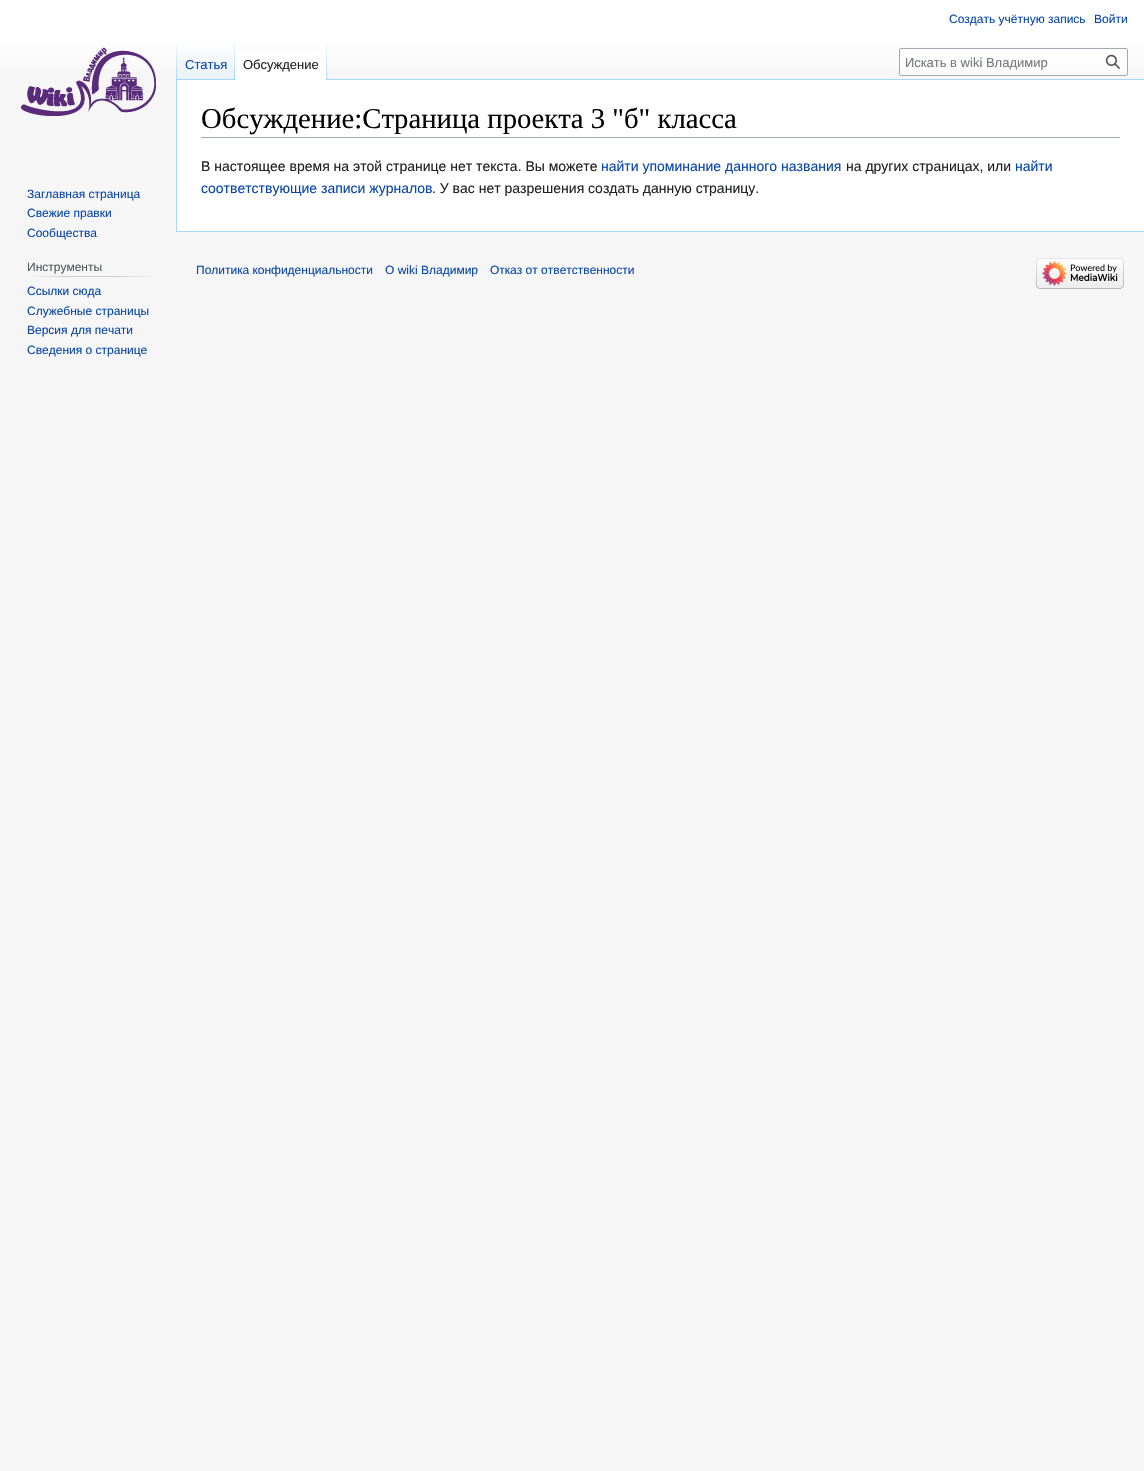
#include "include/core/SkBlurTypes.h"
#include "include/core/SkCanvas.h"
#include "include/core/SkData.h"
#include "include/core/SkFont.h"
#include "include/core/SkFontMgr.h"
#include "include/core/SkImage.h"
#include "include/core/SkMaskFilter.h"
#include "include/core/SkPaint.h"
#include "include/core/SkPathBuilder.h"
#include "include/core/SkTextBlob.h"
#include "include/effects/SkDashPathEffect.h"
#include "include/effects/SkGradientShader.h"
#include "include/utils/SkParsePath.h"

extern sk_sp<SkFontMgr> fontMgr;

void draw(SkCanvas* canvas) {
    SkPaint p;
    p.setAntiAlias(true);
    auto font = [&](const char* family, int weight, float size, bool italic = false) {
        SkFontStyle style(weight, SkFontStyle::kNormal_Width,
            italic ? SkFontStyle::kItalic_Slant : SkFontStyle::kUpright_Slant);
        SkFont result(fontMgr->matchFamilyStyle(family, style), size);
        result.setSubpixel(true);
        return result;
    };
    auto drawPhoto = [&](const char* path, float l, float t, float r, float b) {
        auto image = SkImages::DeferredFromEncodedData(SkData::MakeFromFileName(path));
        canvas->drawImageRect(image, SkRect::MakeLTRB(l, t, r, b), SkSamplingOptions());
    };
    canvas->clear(0xFFF6F6F6);
    {
        const SkColor colors[] = {0xFFFFFFFF, 0xFFF6F6F6};
        const float stops[] = {0.5f, 1};
        const SkPoint ends[] = {{572, 0}, {572, 80}};
        p.setShader(SkGradientShader::MakeLinear(ends, colors, stops, 2, SkTileMode::kClamp));
        p.setAlpha(255);
    }
    canvas->drawRect(SkRect::MakeLTRB(0, 0, 1144, 69), p);
    auto font1 = font("Liberation Sans", 400, 12);
    p.setShader(nullptr);
    p.setColor(0xFF0645AD);
    canvas->drawString("Создать учётную запись", 949, 23, font1, p);
    canvas->drawString("Войти", 1094, 23, font1, p);
    p.setColor(0xFFA7D7F9);
    canvas->drawRect(SkRect::MakeLTRB(176, 231, 1144, 232), p);
    canvas->drawRect(SkRect::MakeLTRB(176, 79, 177, 232), p);
    {
        const SkColor colors[] = {0x00A7D7F9, 0xFFA7D7F9};
        const float stops[] = {0, 1};
        const SkPoint ends[] = {{177, 40}, {177, 80}};
        p.setShader(SkGradientShader::MakeLinear(ends, colors, stops, 2, SkTileMode::kClamp));
        p.setAlpha(255);
    }
    canvas->drawRect(SkRect::MakeLTRB(176, 40, 177, 80), p);
    {
        const SkColor colors[] = {0xFF77C1F6, 0xFFE8F2F8, 0xFFFFFFFF};
        const float stops[] = {0, 0.03f, 1};
        const SkPoint ends[] = {{206, 80}, {206, 40}};
        p.setShader(SkGradientShader::MakeLinear(ends, colors, stops, 3, SkTileMode::kClamp));
        p.setAlpha(255);
    }
    canvas->drawRect(SkRect::MakeLTRB(177, 46, 235, 80), p);
    {
        const SkColor colors[] = {0x00A7D7F9, 0xFFA7D7F9};
        const float stops[] = {0, 1};
        const SkPoint ends[] = {{235, 40}, {235, 80}};
        p.setShader(SkGradientShader::MakeLinear(ends, colors, stops, 2, SkTileMode::kClamp));
        p.setAlpha(255);
    }
    canvas->drawRect(SkRect::MakeLTRB(234, 40, 235, 80), p);
    auto font2 = font("Liberation Sans", 400, 13);
    p.setShader(nullptr);
    p.setColor(0xFF0645AD);
    canvas->drawString("Статья", 185, 69, font2, p);
    p.setColor(0xFFFFFFFF);
    canvas->drawRect(SkRect::MakeLTRB(235, 51, 326, 80), p);
    {
        const SkColor colors[] = {0xFFFFFFFF, 0xFFA7D7F9};
        const float stops[] = {0, 1};
        const SkPoint ends[] = {{327, 40}, {327, 80}};
        p.setShader(SkGradientShader::MakeLinear(ends, colors, stops, 2, SkTileMode::kClamp));
        p.setAlpha(255);
    }
    canvas->drawRect(SkRect::MakeLTRB(326, 40, 327, 80), p);
    p.setShader(nullptr);
    p.setColor(0xFF202122);
    canvas->drawString("Обсуждение", 243, 69, font2, p);
    p.setColor(0x80FFFFFF);
    canvas->drawRoundRect(SkRect::MakeLTRB(899.5f, 48.5f, 1127.5f, 75.5f), 1.5f, 1.5f, p);
    p.setStyle(SkPaint::kStroke_Style);
    p.setStrokeWidth(1);
    p.setColor(0xFFA2A9B1);
    canvas->drawRoundRect(SkRect::MakeLTRB(899.5f, 48.5f, 1127.5f, 75.5f), 1.5f, 1.5f, p);
    p.setStyle(SkPaint::kFill_Style);
    p.setColor(0xFF72777D);
    canvas->drawString("Искать в wiki Владимир", 905, 67, font2, p);
    drawPhoto("media/1.png", 1105, 54, 1120, 69);
    drawPhoto("media/2.png", 21, 47, 156, 116);
    p.setColor(0xFF0645AD);
    {
        const struct { const char* s; float x, y; } items[] = {
            {"Заглавная страница", 27, 198},
            {"Свежие правки", 27, 217},
            {"Сообщества", 27, 237},
        };
        for (auto [s, x, y] : items) {
            canvas->drawString(s, x, y, font1, p);
        }
    }
    {
        const SkColor colors[] = {0xFFF6F6F6, 0xFFC8CCD1, 0xFFC8CCD1, 0xFFF6F6F6};
        const float stops[] = {0, 0.33f, 0.66f, 1};
        const SkPoint ends[] = {{27, 277}, {158, 277}};
        p.setShader(SkGradientShader::MakeLinear(ends, colors, stops, 4, SkTileMode::kClamp));
        p.setAlpha(255);
    }
    canvas->drawRect(SkRect::MakeLTRB(27, 276, 158, 277), p);
    p.setShader(nullptr);
    p.setColor(0xFF54595D);
    canvas->drawString("Инструменты", 27, 271, font1, p);
    p.setColor(0xFF0645AD);
    {
        const struct { const char* s; float x, y; } items[] = {
            {"Ссылки сюда", 27, 295},
            {"Служебные страницы", 27, 315},
            {"Версия для печати", 27, 334},
            {"Сведения о странице", 27, 354},
        };
        for (auto [s, x, y] : items) {
            canvas->drawString(s, x, y, font1, p);
        }
    }
    {
        const struct { float l, t, r, b; SkColor color; } items[] = {
            {177, 80, 1144, 231, 0xFFFFFFFF},
            {327, 79, 1144, 80, 0xFFA7D7F9},
            {201, 137, 1120, 138, 0xFFA2A9B1},
        };
        for (auto [l, t, r, b, color] : items) {
            p.setColor(color);
            canvas->drawRect(SkRect::MakeLTRB(l, t, r, b), p);
        }
    }
    auto font3 = font("Liberation Serif", 400, 28.75f);
    p.setColor(0xFF000000);
    canvas->drawString("Обсуждение:Страница проекта 3 \"б\" класса", 201, 128, font3, p);
    auto font4 = font("Liberation Sans", 400, 14);
    p.setColor(0xFF202122);
    canvas->drawString("В настоящее время на этой странице нет текста. Вы можете", 201, 171, font4, p);
    p.setColor(0xFF0645AD);
    canvas->drawString("найти упоминание данного названия", 601, 171, font4, p);
    p.setColor(0xFF202122);
    canvas->drawString("на других страницах, или", 846, 171, font4, p);
    p.setColor(0xFF0645AD);
    canvas->drawString("найти", 1015, 171, font4, p);
    canvas->drawString("соответствующие записи журналов", 201, 193, font4, p);
    p.setColor(0xFF202122);
    canvas->drawString(". У вас нет разрешения создать данную страницу.", 432, 193, font4, p);
    p.setColor(0xFF0645AD);
    {
        const struct { const char* s; float x, y; } items[] = {
            {"Политика конфиденциальности", 196, 274},
            {"О wiki Владимир", 385, 274},
            {"Отказ от ответственности", 490, 274},
        };
        for (auto [s, x, y] : items) {
            canvas->drawString(s, x, y, font1, p);
        }
    }
    drawPhoto("media/3.png", 1036, 258, 1124, 289);
}
